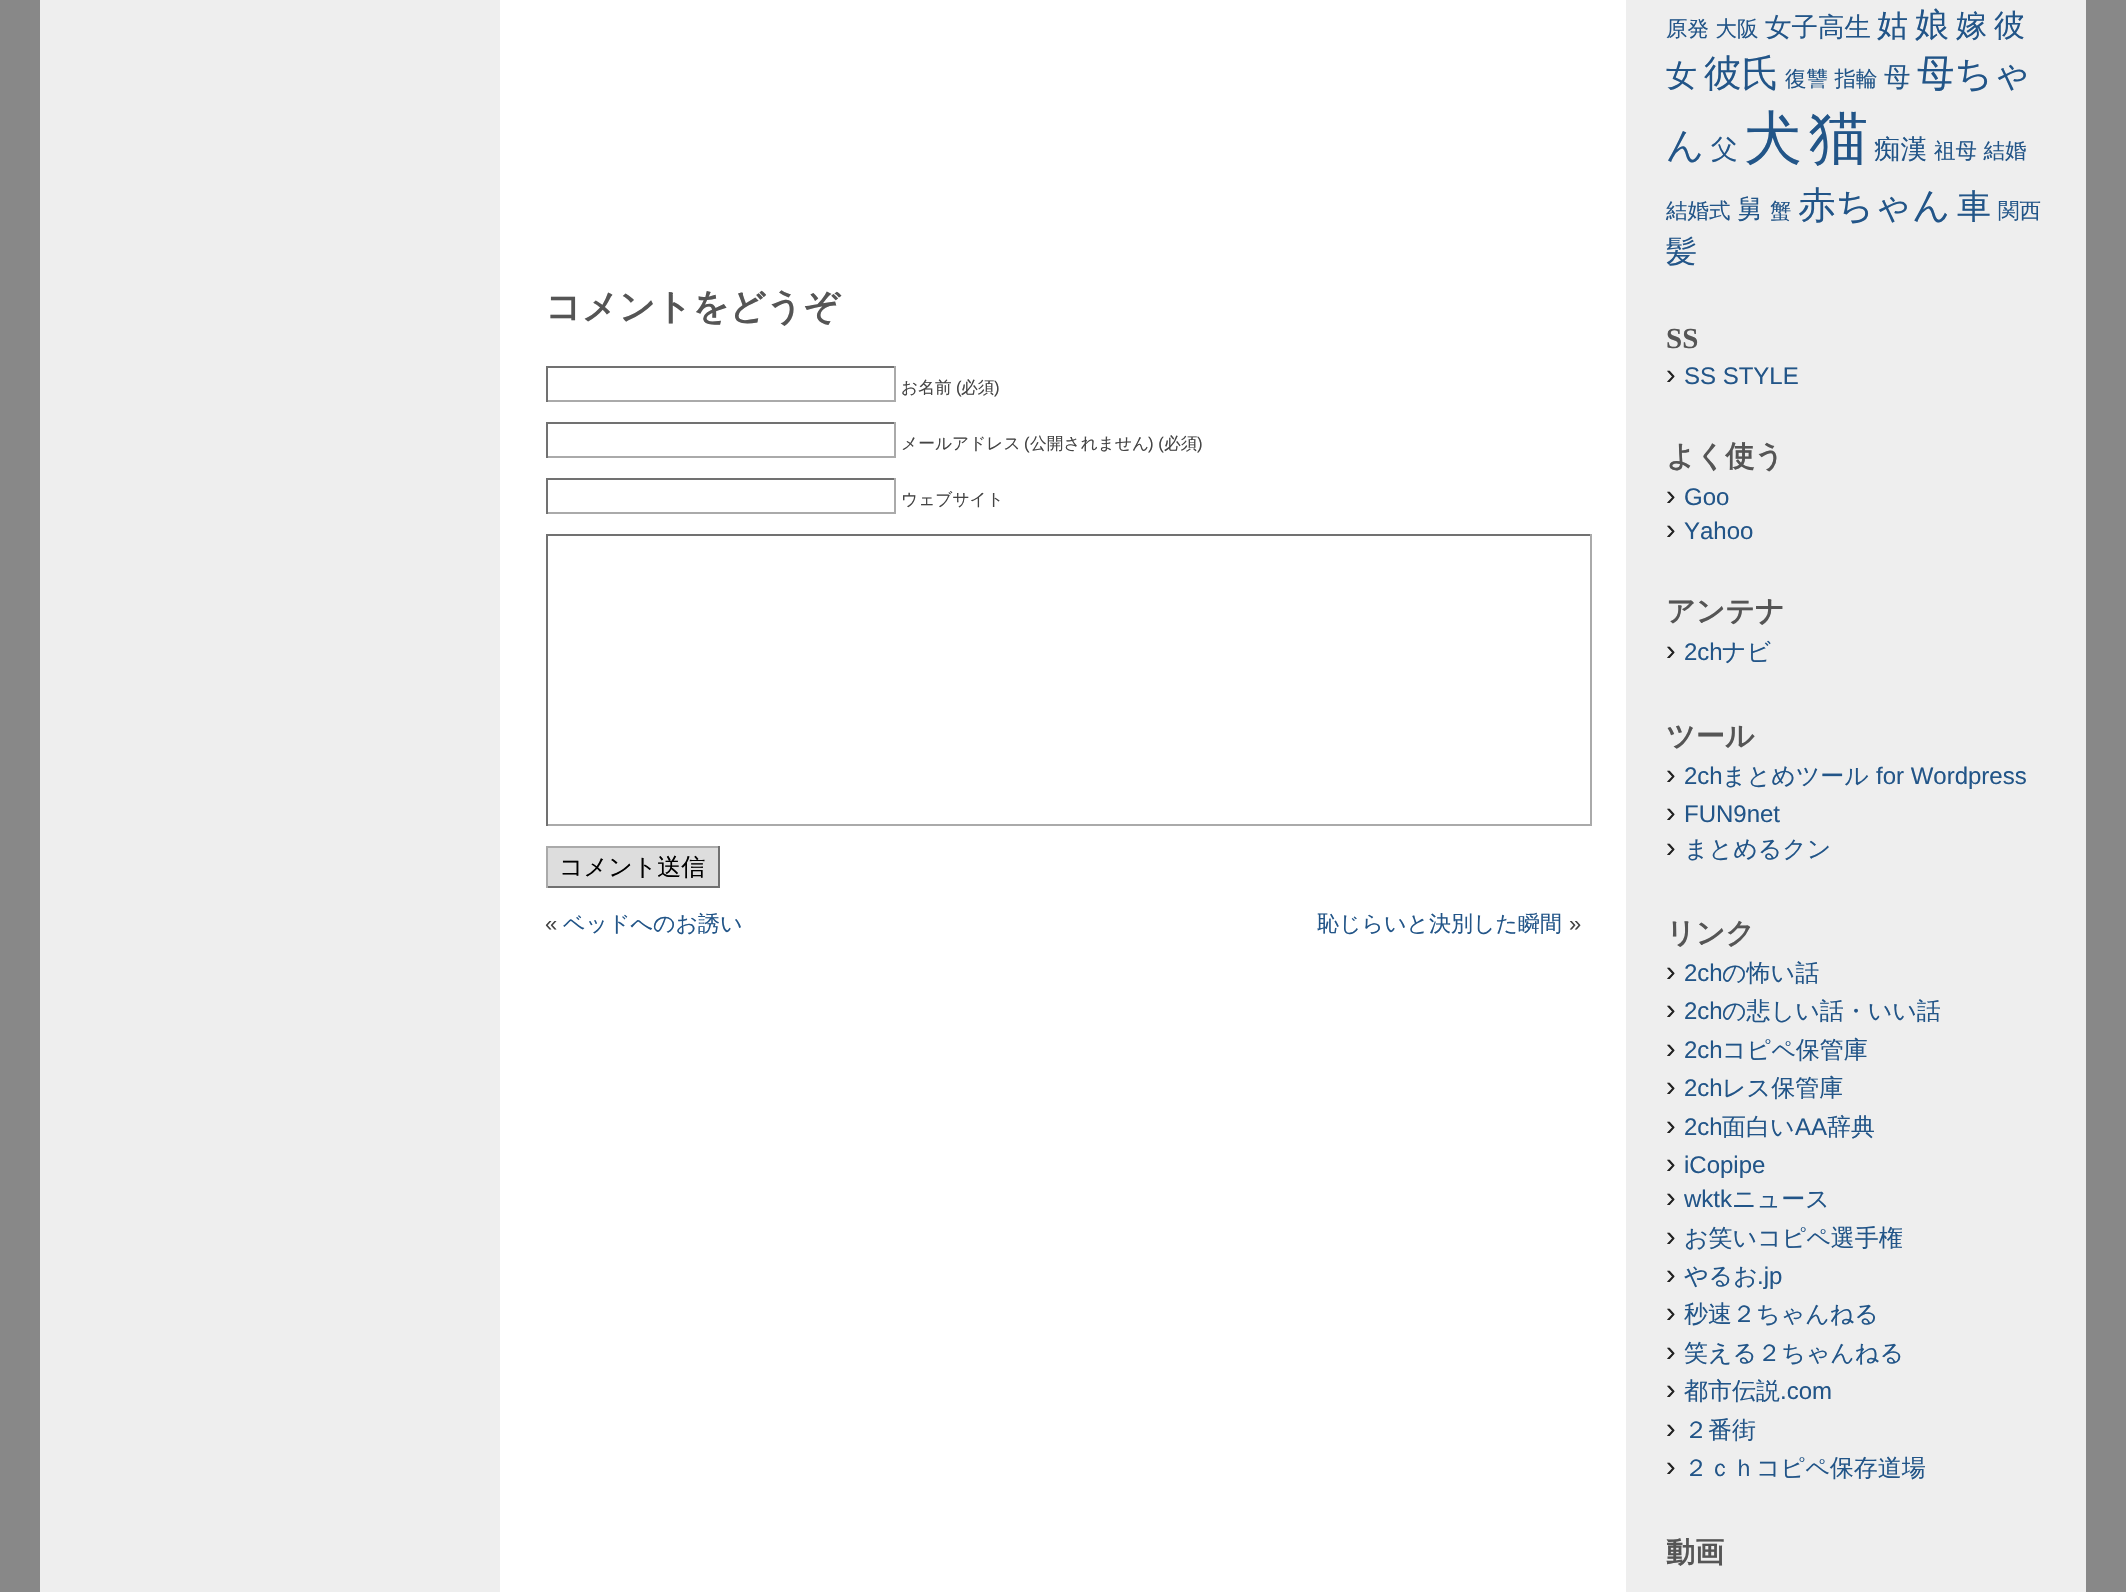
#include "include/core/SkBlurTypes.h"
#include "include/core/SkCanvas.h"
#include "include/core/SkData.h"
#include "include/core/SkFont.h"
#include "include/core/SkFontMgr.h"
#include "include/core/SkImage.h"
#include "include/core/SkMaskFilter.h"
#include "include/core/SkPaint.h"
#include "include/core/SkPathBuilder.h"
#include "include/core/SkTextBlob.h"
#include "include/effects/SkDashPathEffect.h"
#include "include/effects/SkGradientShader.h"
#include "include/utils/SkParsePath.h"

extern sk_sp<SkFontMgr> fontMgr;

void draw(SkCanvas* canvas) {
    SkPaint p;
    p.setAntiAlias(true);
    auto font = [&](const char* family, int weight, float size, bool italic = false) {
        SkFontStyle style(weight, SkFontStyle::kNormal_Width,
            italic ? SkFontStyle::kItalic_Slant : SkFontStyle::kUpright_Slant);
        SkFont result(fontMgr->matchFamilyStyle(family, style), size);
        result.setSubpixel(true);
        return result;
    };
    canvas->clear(0xFF888888);
    {
        const struct { float l, t, r, b; SkColor color; } items[] = {
            {500, 0, 1626, 1592, 0xFFFFFFFF},
            {1626, 0, 2086, 1592, 0xFFEEEEEE},
            {40, 0, 500, 1592, 0xFFEEEEEE},
        };
        for (auto [l, t, r, b, color] : items) {
            p.setColor(color);
            canvas->drawRect(SkRect::MakeLTRB(l, t, r, b), p);
        }
    }
    auto font1 = font("WenQuanYi Zen Hei", 700, 36);
    p.setColor(0xFF555555);
    canvas->drawString("コメントをどうぞ", 545, 319, font1, p);
    {
        const struct { float l, t, r, b; SkColor color; } items[] = {
            {546, 366, 896, 368, 0xFF717171},
            {894, 366, 896, 402, 0xFFAAAAAA},
            {546, 400, 896, 402, 0xFFAAAAAA},
            {546, 366, 548, 402, 0xFF717171},
        };
        for (auto [l, t, r, b, color] : items) {
            p.setColor(color);
            canvas->drawRect(SkRect::MakeLTRB(l, t, r, b), p);
        }
    }
    auto font2 = font("WenQuanYi Zen Hei", 500, 16.75f);
    p.setColor(0xFF444444);
    canvas->drawString("お名前", 901, 393, font2, p);
    auto font3 = font("Liberation Sans", 400, 16.75f);
    canvas->drawString("(", 956, 393, font3, p);
    canvas->drawString("必須", 961, 393, font2, p);
    canvas->drawString(")", 994, 393, font3, p);
    {
        const struct { float l, t, r, b; SkColor color; } items[] = {
            {546, 422, 896, 424, 0xFF717171},
            {894, 422, 896, 458, 0xFFAAAAAA},
            {546, 456, 896, 458, 0xFFAAAAAA},
            {546, 422, 548, 458, 0xFF717171},
        };
        for (auto [l, t, r, b, color] : items) {
            p.setColor(color);
            canvas->drawRect(SkRect::MakeLTRB(l, t, r, b), p);
        }
    }
    p.setColor(0xFF444444);
    canvas->drawString("メールアドレス", 901, 449, font2, p);
    canvas->drawString("(", 1024, 449, font3, p);
    canvas->drawString("公開されません", 1030, 449, font2, p);
    canvas->drawString(") (", 1148, 449, font3, p);
    canvas->drawString("必須", 1164, 449, font2, p);
    canvas->drawString(")", 1197, 449, font3, p);
    {
        const struct { float l, t, r, b; SkColor color; } items[] = {
            {546, 478, 896, 480, 0xFF717171},
            {894, 478, 896, 514, 0xFFAAAAAA},
            {546, 512, 896, 514, 0xFFAAAAAA},
            {546, 478, 548, 514, 0xFF717171},
        };
        for (auto [l, t, r, b, color] : items) {
            p.setColor(color);
            canvas->drawRect(SkRect::MakeLTRB(l, t, r, b), p);
        }
    }
    p.setColor(0xFF444444);
    canvas->drawString("ウェブサイト", 901, 505, font2, p);
    {
        const struct { float l, t, r, b; SkColor color; } items[] = {
            {546, 534, 1592, 536, 0xFF717171},
            {1590, 534, 1592, 826, 0xFFAAAAAA},
            {546, 824, 1592, 826, 0xFFAAAAAA},
            {546, 534, 548, 826, 0xFF717171},
            {548, 848, 718, 886, 0xFFDDDDDD},
            {546, 846, 720, 848, 0xFFAAAAAA},
            {718, 846, 720, 888, 0xFF717171},
            {546, 886, 720, 888, 0xFF717171},
            {546, 846, 548, 888, 0xFFAAAAAA},
        };
        for (auto [l, t, r, b, color] : items) {
            p.setColor(color);
            canvas->drawRect(SkRect::MakeLTRB(l, t, r, b), p);
        }
    }
    auto font4 = font("WenQuanYi Zen Hei", 500, 24);
    p.setColor(0xFF000000);
    canvas->drawString("コメント送信", 559, 875, font4, p);
    auto font5 = font("Liberation Sans", 400, 22);
    p.setColor(0xFF444444);
    canvas->drawString("«", 545, 931, font5, p);
    auto font6 = font("WenQuanYi Zen Hei", 500, 22);
    p.setColor(0xFF225588);
    canvas->drawString("ベッドへのお誘い", 563, 931, font6, p);
    canvas->drawString("恥じらいと決別した瞬間", 1317, 931, font6, p);
    p.setColor(0xFF444444);
    canvas->drawString("»", 1569, 931, font5, p);
    auto font7 = font("WenQuanYi Zen Hei", 500, 21.5f);
    p.setColor(0xFF225588);
    canvas->drawString("原発 大阪", 1666, 36, font7, p);
    auto font8 = font("WenQuanYi Zen Hei", 500, 26.5f);
    canvas->drawString("女子高生", 1765, 36, font8, p);
    auto font9 = font("WenQuanYi Zen Hei", 500, 31);
    canvas->drawString("姑", 1877, 36, font9, p);
    auto font10 = font("WenQuanYi Zen Hei", 500, 34);
    canvas->drawString("娘", 1915, 36, font10, p);
    {
        const struct { const char* s; float x, y; } items[] = {
            {"嫁", 1956, 36},
            {"彼", 1994, 36},
            {"女", 1666, 86},
        };
        for (auto [s, x, y] : items) {
            canvas->drawString(s, x, y, font9, p);
        }
    }
    auto font11 = font("WenQuanYi Zen Hei", 500, 37.5f);
    canvas->drawString("彼氏", 1704, 86, font11, p);
    canvas->drawString("復讐 指輪", 1785, 86, font7, p);
    canvas->drawString("母", 1884, 86, font8, p);
    canvas->drawString("母ちゃ", 1917, 86, font11, p);
    canvas->drawString("ん", 1666, 158, font11, p);
    canvas->drawString("父", 1711, 158, font8, p);
    auto font12 = font("WenQuanYi Zen Hei", 500, 58);
    canvas->drawString("犬", 1744, 158, font12, p);
    auto font13 = font("WenQuanYi Zen Hei", 500, 59);
    canvas->drawString("猫", 1809, 158, font13, p);
    canvas->drawString("痴漢", 1874, 158, font8, p);
    canvas->drawString("祖母 結婚", 1934, 158, font7, p);
    canvas->drawString("結婚式", 1666, 218, font7, p);
    canvas->drawString("舅", 1737, 218, font8, p);
    canvas->drawString("蟹", 1770, 218, font7, p);
    canvas->drawString("赤ちゃん", 1798, 218, font11, p);
    canvas->drawString("車", 1957, 218, font10, p);
    canvas->drawString("関西", 1998, 218, font7, p);
    canvas->drawString("髪", 1666, 262, font9, p);
    auto font14 = font("Liberation Serif", 700, 29);
    p.setColor(0xFF555555);
    canvas->drawString("SS", 1666, 348, font14, p);
    auto font15 = font("Liberation Sans", 400, 29);
    p.setColor(0xFF222222);
    canvas->drawString("›", 1666, 384, font15, p);
    auto font16 = font("Liberation Sans", 400, 24);
    p.setColor(0xFF225588);
    canvas->drawString("SS STYLE", 1684, 384, font16, p);
    auto font17 = font("WenQuanYi Zen Hei", 700, 29);
    p.setColor(0xFF555555);
    canvas->drawString("よく使う", 1666, 466, font17, p);
    p.setColor(0xFF222222);
    canvas->drawString("›", 1666, 505, font15, p);
    p.setColor(0xFF225588);
    canvas->drawString("Goo", 1684, 505, font16, p);
    p.setColor(0xFF222222);
    canvas->drawString("›", 1666, 539, font15, p);
    p.setColor(0xFF225588);
    canvas->drawString("Yahoo", 1684, 539, font16, p);
    p.setColor(0xFF555555);
    canvas->drawString("アンテナ", 1666, 621, font17, p);
    p.setColor(0xFF222222);
    canvas->drawString("›", 1666, 660, font15, p);
    p.setColor(0xFF225588);
    canvas->drawString("2ch", 1684, 660, font16, p);
    canvas->drawString("ナビ", 1722, 660, font4, p);
    p.setColor(0xFF555555);
    canvas->drawString("ツール", 1666, 746, font17, p);
    p.setColor(0xFF222222);
    canvas->drawString("›", 1666, 784, font15, p);
    p.setColor(0xFF225588);
    canvas->drawString("2ch", 1684, 784, font16, p);
    canvas->drawString("まとめツール", 1722, 784, font4, p);
    canvas->drawString("for Wordpress", 1876, 784, font16, p);
    p.setColor(0xFF222222);
    canvas->drawString("›", 1666, 822, font15, p);
    p.setColor(0xFF225588);
    canvas->drawString("FUN9net", 1684, 822, font16, p);
    p.setColor(0xFF222222);
    canvas->drawString("›", 1666, 857, font15, p);
    p.setColor(0xFF225588);
    canvas->drawString("まとめるクン", 1684, 857, font4, p);
    p.setColor(0xFF555555);
    canvas->drawString("リンク", 1666, 943, font17, p);
    p.setColor(0xFF222222);
    canvas->drawString("›", 1666, 981, font15, p);
    p.setColor(0xFF225588);
    canvas->drawString("2ch", 1684, 981, font16, p);
    canvas->drawString("の怖い話", 1722, 981, font4, p);
    p.setColor(0xFF222222);
    canvas->drawString("›", 1666, 1019, font15, p);
    p.setColor(0xFF225588);
    canvas->drawString("2ch", 1684, 1019, font16, p);
    canvas->drawString("の悲しい話・いい話", 1722, 1019, font4, p);
    p.setColor(0xFF222222);
    canvas->drawString("›", 1666, 1058, font15, p);
    p.setColor(0xFF225588);
    canvas->drawString("2ch", 1684, 1058, font16, p);
    canvas->drawString("コピペ保管庫", 1722, 1058, font4, p);
    p.setColor(0xFF222222);
    canvas->drawString("›", 1666, 1096, font15, p);
    p.setColor(0xFF225588);
    canvas->drawString("2ch", 1684, 1096, font16, p);
    canvas->drawString("レス保管庫", 1722, 1096, font4, p);
    p.setColor(0xFF222222);
    canvas->drawString("›", 1666, 1135, font15, p);
    p.setColor(0xFF225588);
    canvas->drawString("2ch", 1684, 1135, font16, p);
    canvas->drawString("面白い", 1722, 1135, font4, p);
    canvas->drawString("AA", 1795, 1135, font16, p);
    canvas->drawString("辞典", 1827, 1135, font4, p);
    p.setColor(0xFF222222);
    canvas->drawString("›", 1666, 1173, font15, p);
    p.setColor(0xFF225588);
    canvas->drawString("iCopipe", 1684, 1173, font16, p);
    p.setColor(0xFF222222);
    canvas->drawString("›", 1666, 1207, font15, p);
    p.setColor(0xFF225588);
    canvas->drawString("wktk", 1684, 1207, font16, p);
    canvas->drawString("ニュース", 1732, 1207, font4, p);
    p.setColor(0xFF222222);
    canvas->drawString("›", 1666, 1246, font15, p);
    p.setColor(0xFF225588);
    canvas->drawString("お笑いコピペ選手権", 1684, 1246, font4, p);
    p.setColor(0xFF222222);
    canvas->drawString("›", 1666, 1284, font15, p);
    p.setColor(0xFF225588);
    canvas->drawString("やるお", 1684, 1284, font4, p);
    canvas->drawString(".jp", 1757, 1284, font16, p);
    p.setColor(0xFF222222);
    canvas->drawString("›", 1666, 1322, font15, p);
    p.setColor(0xFF225588);
    canvas->drawString("秒速２ちゃんねる", 1684, 1322, font4, p);
    p.setColor(0xFF222222);
    canvas->drawString("›", 1666, 1361, font15, p);
    p.setColor(0xFF225588);
    canvas->drawString("笑える２ちゃんねる", 1684, 1361, font4, p);
    p.setColor(0xFF222222);
    canvas->drawString("›", 1666, 1399, font15, p);
    p.setColor(0xFF225588);
    canvas->drawString("都市伝説", 1684, 1399, font4, p);
    canvas->drawString(".com", 1780, 1399, font16, p);
    p.setColor(0xFF222222);
    canvas->drawString("›", 1666, 1438, font15, p);
    p.setColor(0xFF225588);
    canvas->drawString("２番街", 1684, 1438, font4, p);
    p.setColor(0xFF222222);
    canvas->drawString("›", 1666, 1476, font15, p);
    p.setColor(0xFF225588);
    canvas->drawString("２ｃｈコピペ保存道場", 1684, 1476, font4, p);
    p.setColor(0xFF555555);
    canvas->drawString("動画", 1666, 1562, font17, p);
}
